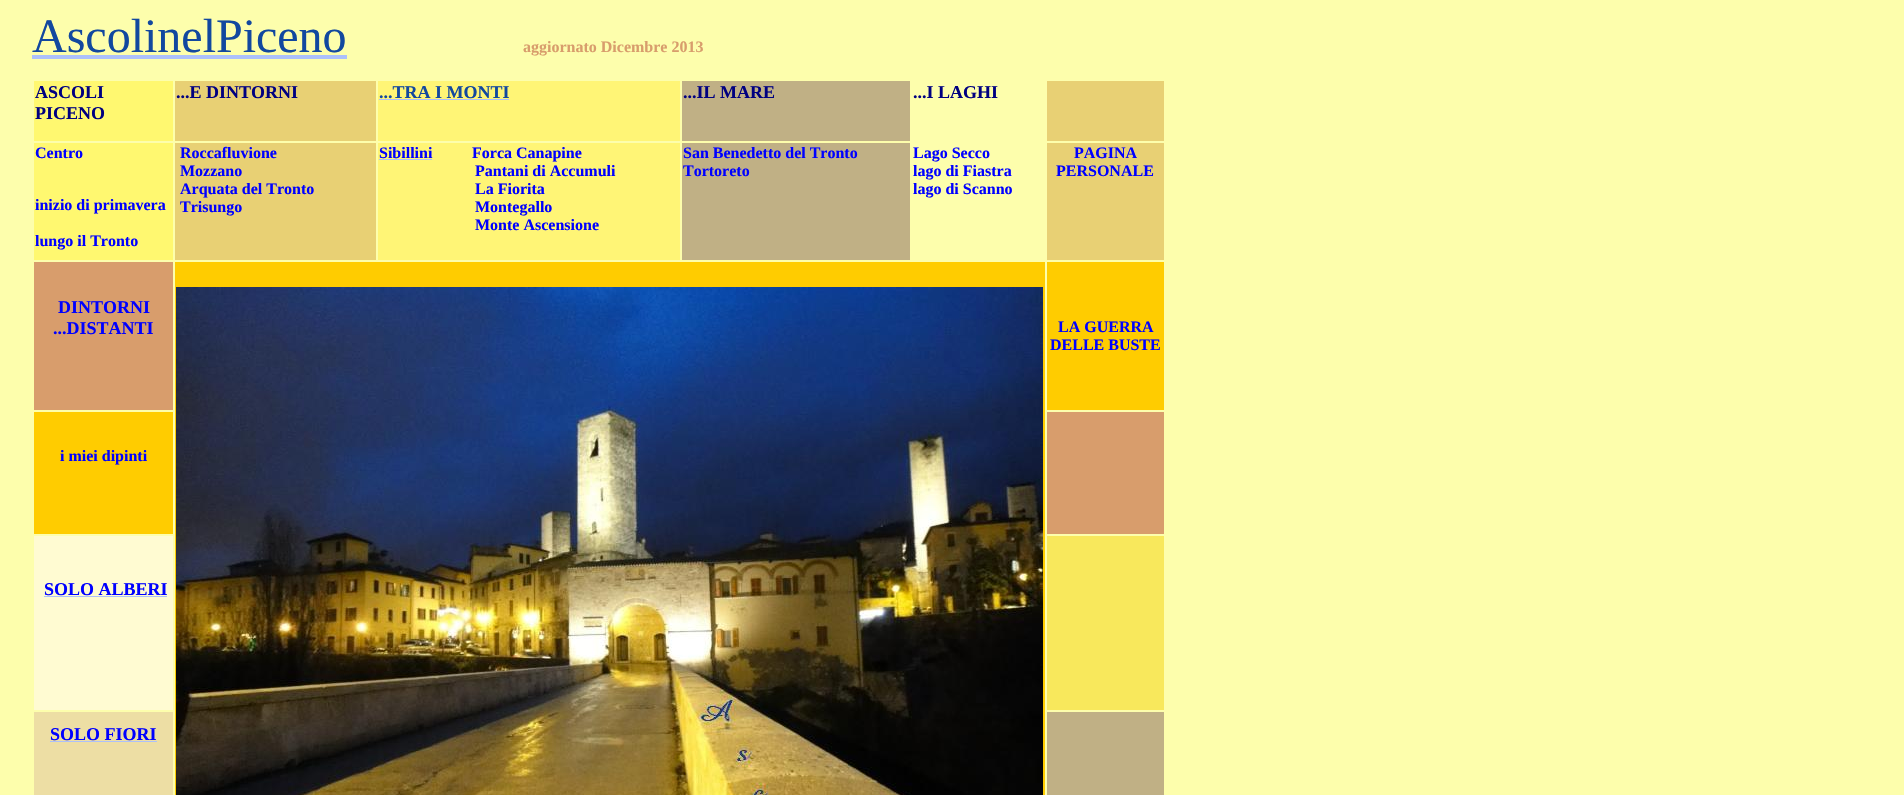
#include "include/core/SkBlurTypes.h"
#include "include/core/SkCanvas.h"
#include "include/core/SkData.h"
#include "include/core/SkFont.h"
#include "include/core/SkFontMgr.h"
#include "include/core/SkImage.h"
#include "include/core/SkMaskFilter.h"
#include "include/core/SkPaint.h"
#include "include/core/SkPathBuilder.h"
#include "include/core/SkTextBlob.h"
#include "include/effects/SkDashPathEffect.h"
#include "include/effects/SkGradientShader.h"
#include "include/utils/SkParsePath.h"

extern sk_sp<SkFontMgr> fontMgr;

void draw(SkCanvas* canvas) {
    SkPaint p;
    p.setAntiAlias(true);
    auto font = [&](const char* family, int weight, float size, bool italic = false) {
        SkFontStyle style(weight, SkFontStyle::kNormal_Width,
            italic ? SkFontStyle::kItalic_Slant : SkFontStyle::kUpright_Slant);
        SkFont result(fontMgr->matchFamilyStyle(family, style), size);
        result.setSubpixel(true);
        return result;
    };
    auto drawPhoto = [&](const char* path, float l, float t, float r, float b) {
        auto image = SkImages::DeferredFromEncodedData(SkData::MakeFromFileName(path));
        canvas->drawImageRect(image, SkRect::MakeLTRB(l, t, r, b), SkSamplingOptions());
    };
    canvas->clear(0xFFFDFEAC);
    auto font1 = font("Liberation Serif", 400, 48);
    p.setColor(0xFF12489F);
    canvas->drawString("AscolinelPiceno", 32, 52, font1, p);
    p.setColor(0xFFACC0FB);
    canvas->drawRect(SkRect::MakeLTRB(32, 55, 347, 59), p);
    auto font2 = font("Liberation Serif", 700, 16);
    p.setColor(0xFFD89D6C);
    canvas->drawString("aggiornato Dicembre 2013", 523, 52, font2, p);
    p.setColor(0xFFFFF870);
    canvas->drawRect(SkRect::MakeLTRB(34, 81, 173, 141), p);
    auto font3 = font("Liberation Serif", 700, 18);
    p.setColor(0xFF000080);
    canvas->drawString("ASCOLI", 35, 98, font3, p);
    canvas->drawString("PICENO", 35, 119, font3, p);
    p.setColor(0xFFE8D074);
    canvas->drawRect(SkRect::MakeLTRB(175, 81, 376, 141), p);
    p.setColor(0xFF000080);
    canvas->drawString("...E DINTORNI", 176, 98, font3, p);
    p.setColor(0xFFFFF576);
    canvas->drawRect(SkRect::MakeLTRB(378, 81, 680, 141), p);
    p.setColor(0xFF12489F);
    canvas->drawString("...TRA I MONTI", 379, 98, font3, p);
    p.setColor(0xFFACC0FB);
    canvas->drawRect(SkRect::MakeLTRB(379, 99, 509, 100), p);
    p.setColor(0xFFC0B085);
    canvas->drawRect(SkRect::MakeLTRB(682, 81, 910, 141), p);
    p.setColor(0xFF000080);
    canvas->drawString("...IL MARE", 683, 98, font3, p);
    canvas->drawString("...I LAGHI", 913, 98, font3, p);
    p.setColor(0xFFE8D074);
    canvas->drawRect(SkRect::MakeLTRB(1047, 81, 1164, 141), p);
    p.setColor(0xFFFFF870);
    canvas->drawRect(SkRect::MakeLTRB(34, 143, 173, 260), p);
    p.setColor(0xFF0000FF);
    {
        const struct { const char* s; float x, y; } items[] = {
            {"Centro", 35, 158},
            {"inizio di primavera", 35, 210},
            {"lungo il Tronto", 35, 246},
        };
        for (auto [s, x, y] : items) {
            canvas->drawString(s, x, y, font2, p);
        }
    }
    p.setColor(0xFFE8D074);
    canvas->drawRect(SkRect::MakeLTRB(175, 143, 376, 260), p);
    p.setColor(0xFF0000FF);
    {
        const struct { const char* s; float x, y; } items[] = {
            {"Roccafluvione", 180, 158},
            {"Mozzano", 180, 176},
            {"Arquata del Tronto", 180, 194},
            {"Trisungo", 180, 212},
        };
        for (auto [s, x, y] : items) {
            canvas->drawString(s, x, y, font2, p);
        }
    }
    p.setColor(0xFFFFF576);
    canvas->drawRect(SkRect::MakeLTRB(378, 143, 680, 260), p);
    p.setColor(0xFF0000FF);
    canvas->drawString("Sibillini", 379, 158, font2, p);
    p.setColor(0xFFACC0FB);
    canvas->drawRect(SkRect::MakeLTRB(379, 159, 432, 160), p);
    p.setColor(0xFF0000FF);
    {
        const struct { const char* s; float x, y; } items[] = {
            {"Forca Canapine", 472, 158},
            {"Pantani di Accumuli", 475, 176},
            {"La Fiorita", 475, 194},
            {"Montegallo", 475, 212},
            {"Monte Ascensione", 475, 230},
        };
        for (auto [s, x, y] : items) {
            canvas->drawString(s, x, y, font2, p);
        }
    }
    p.setColor(0xFFC0B085);
    canvas->drawRect(SkRect::MakeLTRB(682, 143, 910, 260), p);
    p.setColor(0xFF0000FF);
    {
        const struct { const char* s; float x, y; } items[] = {
            {"San Benedetto del Tronto", 683, 158},
            {"Tortoreto", 683, 176},
            {"Lago Secco", 913, 158},
            {"lago di Fiastra", 913, 176},
            {"lago di Scanno", 913, 194},
        };
        for (auto [s, x, y] : items) {
            canvas->drawString(s, x, y, font2, p);
        }
    }
    p.setColor(0xFFE8D074);
    canvas->drawRect(SkRect::MakeLTRB(1047, 143, 1164, 260), p);
    p.setColor(0xFF0000FF);
    canvas->drawString("PAGINA", 1074, 158, font2, p);
    canvas->drawString("PERSONALE", 1056, 176, font2, p);
    p.setColor(0xFFD89D6C);
    canvas->drawRect(SkRect::MakeLTRB(34, 262, 173, 410), p);
    p.setColor(0xFF0000FF);
    canvas->drawString("DINTORNI", 58, 313, font3, p);
    canvas->drawString("...DISTANTI", 53, 334, font3, p);
    p.setColor(0xFFFFCC00);
    canvas->drawRect(SkRect::MakeLTRB(175, 262, 1045, 795), p);
    drawPhoto("media/1.png", 176, 287, 1043, 795);
    canvas->drawRect(SkRect::MakeLTRB(1047, 262, 1164, 410), p);
    p.setColor(0xFF0000FF);
    canvas->drawString("LA GUERRA", 1058, 332, font2, p);
    canvas->drawString("DELLE BUSTE", 1050, 350, font2, p);
    p.setColor(0xFFFFCC00);
    canvas->drawRect(SkRect::MakeLTRB(34, 412, 173, 534), p);
    p.setColor(0xFF0000FF);
    canvas->drawString("i miei dipinti", 60, 461, font2, p);
    p.setColor(0xFFD89D6C);
    canvas->drawRect(SkRect::MakeLTRB(1047, 412, 1164, 534), p);
    p.setColor(0xFFFFFBD2);
    canvas->drawRect(SkRect::MakeLTRB(34, 536, 173, 710), p);
    p.setColor(0xFF0000FF);
    canvas->drawString("SOLO ALBERI", 44, 595, font3, p);
    {
        const struct { float l, t, r, b; SkColor color; } items[] = {
            {44, 596, 167, 597, 0xFFACC0FB},
            {1047, 536, 1164, 710, 0xFFF8E85C},
            {34, 712, 173, 795, 0xFFEDDEA4},
        };
        for (auto [l, t, r, b, color] : items) {
            p.setColor(color);
            canvas->drawRect(SkRect::MakeLTRB(l, t, r, b), p);
        }
    }
    p.setColor(0xFF0000FF);
    canvas->drawString("SOLO FIORI", 50, 740, font3, p);
    p.setColor(0xFFACC0FB);
    canvas->drawRect(SkRect::MakeLTRB(50, 741, 157, 742), p);
    p.setColor(0xFFC0B085);
    canvas->drawRect(SkRect::MakeLTRB(1047, 712, 1164, 795), p);
}
